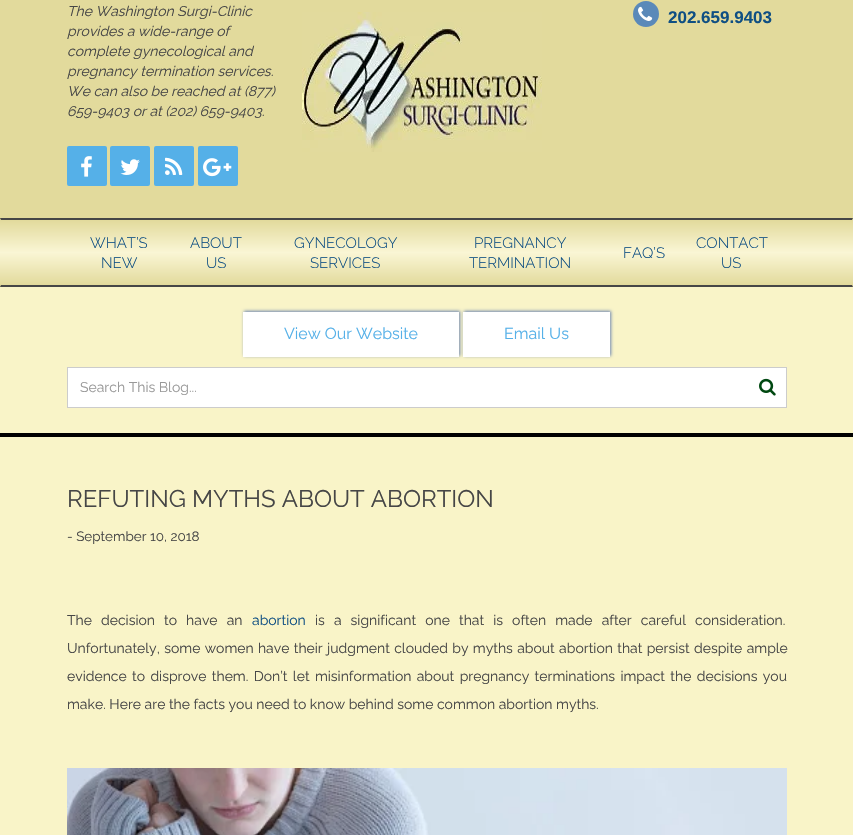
#include "include/core/SkBlurTypes.h"
#include "include/core/SkCanvas.h"
#include "include/core/SkData.h"
#include "include/core/SkFont.h"
#include "include/core/SkFontMgr.h"
#include "include/core/SkImage.h"
#include "include/core/SkMaskFilter.h"
#include "include/core/SkPaint.h"
#include "include/core/SkPathBuilder.h"
#include "include/core/SkTextBlob.h"
#include "include/effects/SkDashPathEffect.h"
#include "include/effects/SkGradientShader.h"
#include "include/utils/SkParsePath.h"

extern sk_sp<SkFontMgr> fontMgr;

void draw(SkCanvas* canvas) {
    SkPaint p;
    p.setAntiAlias(true);
    auto font = [&](const char* family, int weight, float size, bool italic = false) {
        SkFontStyle style(weight, SkFontStyle::kNormal_Width,
            italic ? SkFontStyle::kItalic_Slant : SkFontStyle::kUpright_Slant);
        SkFont result(fontMgr->matchFamilyStyle(family, style), size);
        result.setSubpixel(true);
        return result;
    };
    auto drawTracked = [&](const char* s, float x, float y, const SkFont& font, const SkPaint& ink, float letter, float word) {
        std::vector<SkGlyphID> glyphs(font.countText(s, strlen(s), SkTextEncoding::kUTF8));
        std::vector<float> xs(glyphs.size());
        font.textToGlyphs(s, strlen(s), SkTextEncoding::kUTF8, glyphs);
        font.getXPos(glyphs, xs, x);
        float extra = 0;
        for (size_t i = 0; i < glyphs.size(); i++) {
            xs[i] += extra;
            extra += letter + word * (glyphs[i] == font.unicharToGlyph(' '));
        }
        canvas->drawTextBlob(SkTextBlob::MakeFromPosHGlyphs(glyphs, xs, y, font), 0, 0, ink);
    };
    auto drawPhoto = [&](const char* path, float l, float t, float r, float b) {
        auto image = SkImages::DeferredFromEncodedData(SkData::MakeFromFileName(path));
        canvas->drawImageRect(image, SkRect::MakeLTRB(l, t, r, b), SkSamplingOptions());
    };
    canvas->clear(0xFFE2DA9C);
    auto font1 = font("Raleway", 400, 14, true);
    p.setColor(0xFF464646);
    {
        const struct { const char* s; float x, y; } items[] = {
            {"The Washington Surgi-Clinic", 67, 16},
            {"provides a wide-range of", 67, 36},
            {"complete gynecological and", 67, 56},
            {"pregnancy termination services.", 67, 76},
            {"We can also be reached at (877)", 67, 96},
            {"659-9403 or at (202) 659-9403.", 67, 116},
        };
        for (auto [s, x, y] : items) {
            canvas->drawString(s, x, y, font1, p);
        }
    }
    p.setColor(0xFF55B0E8);
    canvas->drawRoundRect(SkRect::MakeLTRB(68, 147, 106, 185), 1, 1, p);
    p.setStyle(SkPaint::kStroke_Style);
    p.setStrokeWidth(2);
    canvas->drawRoundRect(SkRect::MakeLTRB(68, 147, 106, 185), 1, 1, p);
    drawPhoto("media/1.png", 81, 156, 92, 177);
    p.setStyle(SkPaint::kFill_Style);
    canvas->drawRoundRect(SkRect::MakeLTRB(111, 147, 149, 185), 1, 1, p);
    p.setStyle(SkPaint::kStroke_Style);
    canvas->drawRoundRect(SkRect::MakeLTRB(111, 147, 149, 185), 1, 1, p);
    drawPhoto("media/2.png", 120, 159, 140, 175);
    p.setStyle(SkPaint::kFill_Style);
    canvas->drawRoundRect(SkRect::MakeLTRB(155, 147, 193, 185), 1, 1, p);
    p.setStyle(SkPaint::kStroke_Style);
    canvas->drawRoundRect(SkRect::MakeLTRB(155, 147, 193, 185), 1, 1, p);
    drawPhoto("media/3.png", 165, 157, 183, 175);
    p.setStyle(SkPaint::kFill_Style);
    canvas->drawRoundRect(SkRect::MakeLTRB(199, 147, 237, 185), 1, 1, p);
    p.setStyle(SkPaint::kStroke_Style);
    canvas->drawRoundRect(SkRect::MakeLTRB(199, 147, 237, 185), 1, 1, p);
    drawPhoto("media/4.png", 203, 158, 232, 177);
    drawPhoto("media/5.png", 302, 12, 542, 152);
    p.setStyle(SkPaint::kFill_Style);
    p.setColor(0xFF5A89B9);
    canvas->drawCircle(646, 14, 13, p);
    drawPhoto("media/6.png", 638, 6, 653, 21);
    auto font2 = font("Liberation Sans", 700, 17);
    p.setColor(0xFF0F4F83);
    canvas->drawString("202.659.9403", 668, 23, font2, p);
    {
        const SkColor colors[] = {0xFFE2DA9C, 0xFFFAF6D5, 0xFFE2DA9C};
        const float stops[] = {0, 0.5f, 1};
        const SkPoint ends[] = {{427, 220}, {427, 155}};
        p.setShader(SkGradientShader::MakeLinear(ends, colors, stops, 3, SkTileMode::kClamp));
        p.setAlpha(255);
    }
    canvas->drawRect(SkRect::MakeLTRB(0, 218, 853, 219), p);
    {
        const SkColor colors[] = {0xFFE2DA9C, 0xFFFAF6D5, 0xFFE2DA9C};
        const float stops[] = {0, 0.5f, 1};
        const SkPoint ends[] = {{427, 285}, {427, 220}};
        p.setShader(SkGradientShader::MakeLinear(ends, colors, stops, 3, SkTileMode::kClamp));
        p.setAlpha(255);
    }
    canvas->drawRect(SkRect::MakeLTRB(0, 221, 853, 284), p);
    {
        const SkColor colors[] = {0xFFE2DA9C, 0xFFFAF6D5, 0xFFE2DA9C};
        const float stops[] = {0, 0.5f, 1};
        const SkPoint ends[] = {{427, 350}, {427, 285}};
        p.setShader(SkGradientShader::MakeLinear(ends, colors, stops, 3, SkTileMode::kClamp));
        p.setAlpha(255);
    }
    canvas->drawRect(SkRect::MakeLTRB(0, 286, 853, 287), p);
    p.setShader(nullptr);
    p.setColor(0xFF464646);
    canvas->drawPath(SkPathBuilder().moveTo(0, 218).lineTo(853, 218).lineTo(852, 220).lineTo(1, 220).close().detach(), p);
    canvas->drawPath(SkPathBuilder().moveTo(853, 287).lineTo(0, 287).lineTo(1, 285).lineTo(852, 285).close().detach(), p);
    auto font3 = font("Raleway", 300, 15);
    p.setColor(0xFF0F4F83);
    {
        const struct { const char* s; float x, y; } items[] = {
            {"WHAT’S", 90, 248},
            {"NEW", 101, 268},
            {"ABOUT", 190, 248},
            {"US", 206, 268},
            {"GYNECOLOGY", 294, 248},
            {"SERVICES", 310, 268},
            {"PREGNANCY", 474, 248},
            {"TERMINATION", 469, 268},
            {"FAQ’S", 623, 258},
            {"CONTACT", 696, 248},
            {"US", 721, 268},
        };
        for (auto [s, x, y] : items) {
            canvas->drawString(s, x, y, font3, p);
        }
    }
    p.setColor(0xFFF9F4C8);
    canvas->drawRect(SkRect::MakeLTRB(0, 287, 853, 433), p);
    p.setColor(0xFF000000);
    canvas->drawRect(SkRect::MakeLTRB(0, 433, 853, 437), p);
    p.setColor(0xFF6D85B4);
    p.setMaskFilter(SkMaskFilter::MakeBlur(kNormal_SkBlurStyle, 1.5f));
    canvas->drawRect(SkRect::MakeLTRB(244, 311, 460, 356), p);
    p.setMaskFilter(nullptr);
    p.setColor(0xFFFFFFFF);
    canvas->drawRect(SkRect::MakeLTRB(243, 312, 459, 357), p);
    auto font4 = font("Raleway", 400, 16);
    p.setColor(0xFF55B0E8);
    canvas->drawString("View Our Website", 284, 339, font4, p);
    p.setColor(0xFF6D85B4);
    p.setMaskFilter(SkMaskFilter::MakeBlur(kNormal_SkBlurStyle, 1.5f));
    canvas->drawRect(SkRect::MakeLTRB(464, 311, 611, 356), p);
    p.setMaskFilter(nullptr);
    p.setColor(0xFFFFFFFF);
    canvas->drawRect(SkRect::MakeLTRB(463, 312, 610, 357), p);
    p.setColor(0xFF55B0E8);
    canvas->drawString("Email Us", 504, 339, font4, p);
    p.setColor(0xFFFFFFFF);
    canvas->drawRect(SkRect::MakeLTRB(67.5f, 367.5f, 786.5f, 407.5f), p);
    p.setStyle(SkPaint::kStroke_Style);
    p.setStrokeWidth(1);
    p.setColor(0xFFCCCCCC);
    canvas->drawRect(SkRect::MakeLTRB(67.5f, 367.5f, 786.5f, 407.5f), p);
    auto font5 = font("Raleway", 400, 14);
    p.setStyle(SkPaint::kFill_Style);
    p.setColor(0xFF999999);
    canvas->drawString("Search This Blog...", 80, 392, font5, p);
    drawPhoto("media/7.png", 759, 378, 776, 396);
    p.setColor(0xFFF9F4C8);
    canvas->drawRect(SkRect::MakeLTRB(0, 437, 853, 835), p);
    auto font6 = font("Raleway", 400, 24);
    p.setColor(0xFF464646);
    canvas->drawString("REFUTING MYTHS ABOUT ABORTION", 67, 507, font6, p);
    auto font7 = font("Raleway", 400, 13.5f);
    canvas->drawString("- September 10, 2018", 67, 541, font7, p);
    drawTracked("The decision to have an", 67, 625, font5, p, 0, 5.5f);
    p.setColor(0xFF0F4F83);
    canvas->drawString("abortion", 252, 625, font5, p);
    p.setColor(0xFF464646);
    drawTracked("is a significant one that is often made after careful consideration.", 315, 625, font5, p, 0, 5.5f);
    drawTracked("Unfortunately, some women have their judgment clouded by myths about abortion that persist despite ample", 67, 653, font5, p, 0, 0.75f);
    drawTracked("evidence to disprove them. Don’t let misinformation about pregnancy terminations impact the decisions you", 67, 681, font5, p, 0, 1.75f);
    canvas->drawString("make. Here are the facts you need to know behind some common abortion myths.", 67, 709, font5, p);
    drawPhoto("media/8.png", 67, 768, 787, 835);
}
